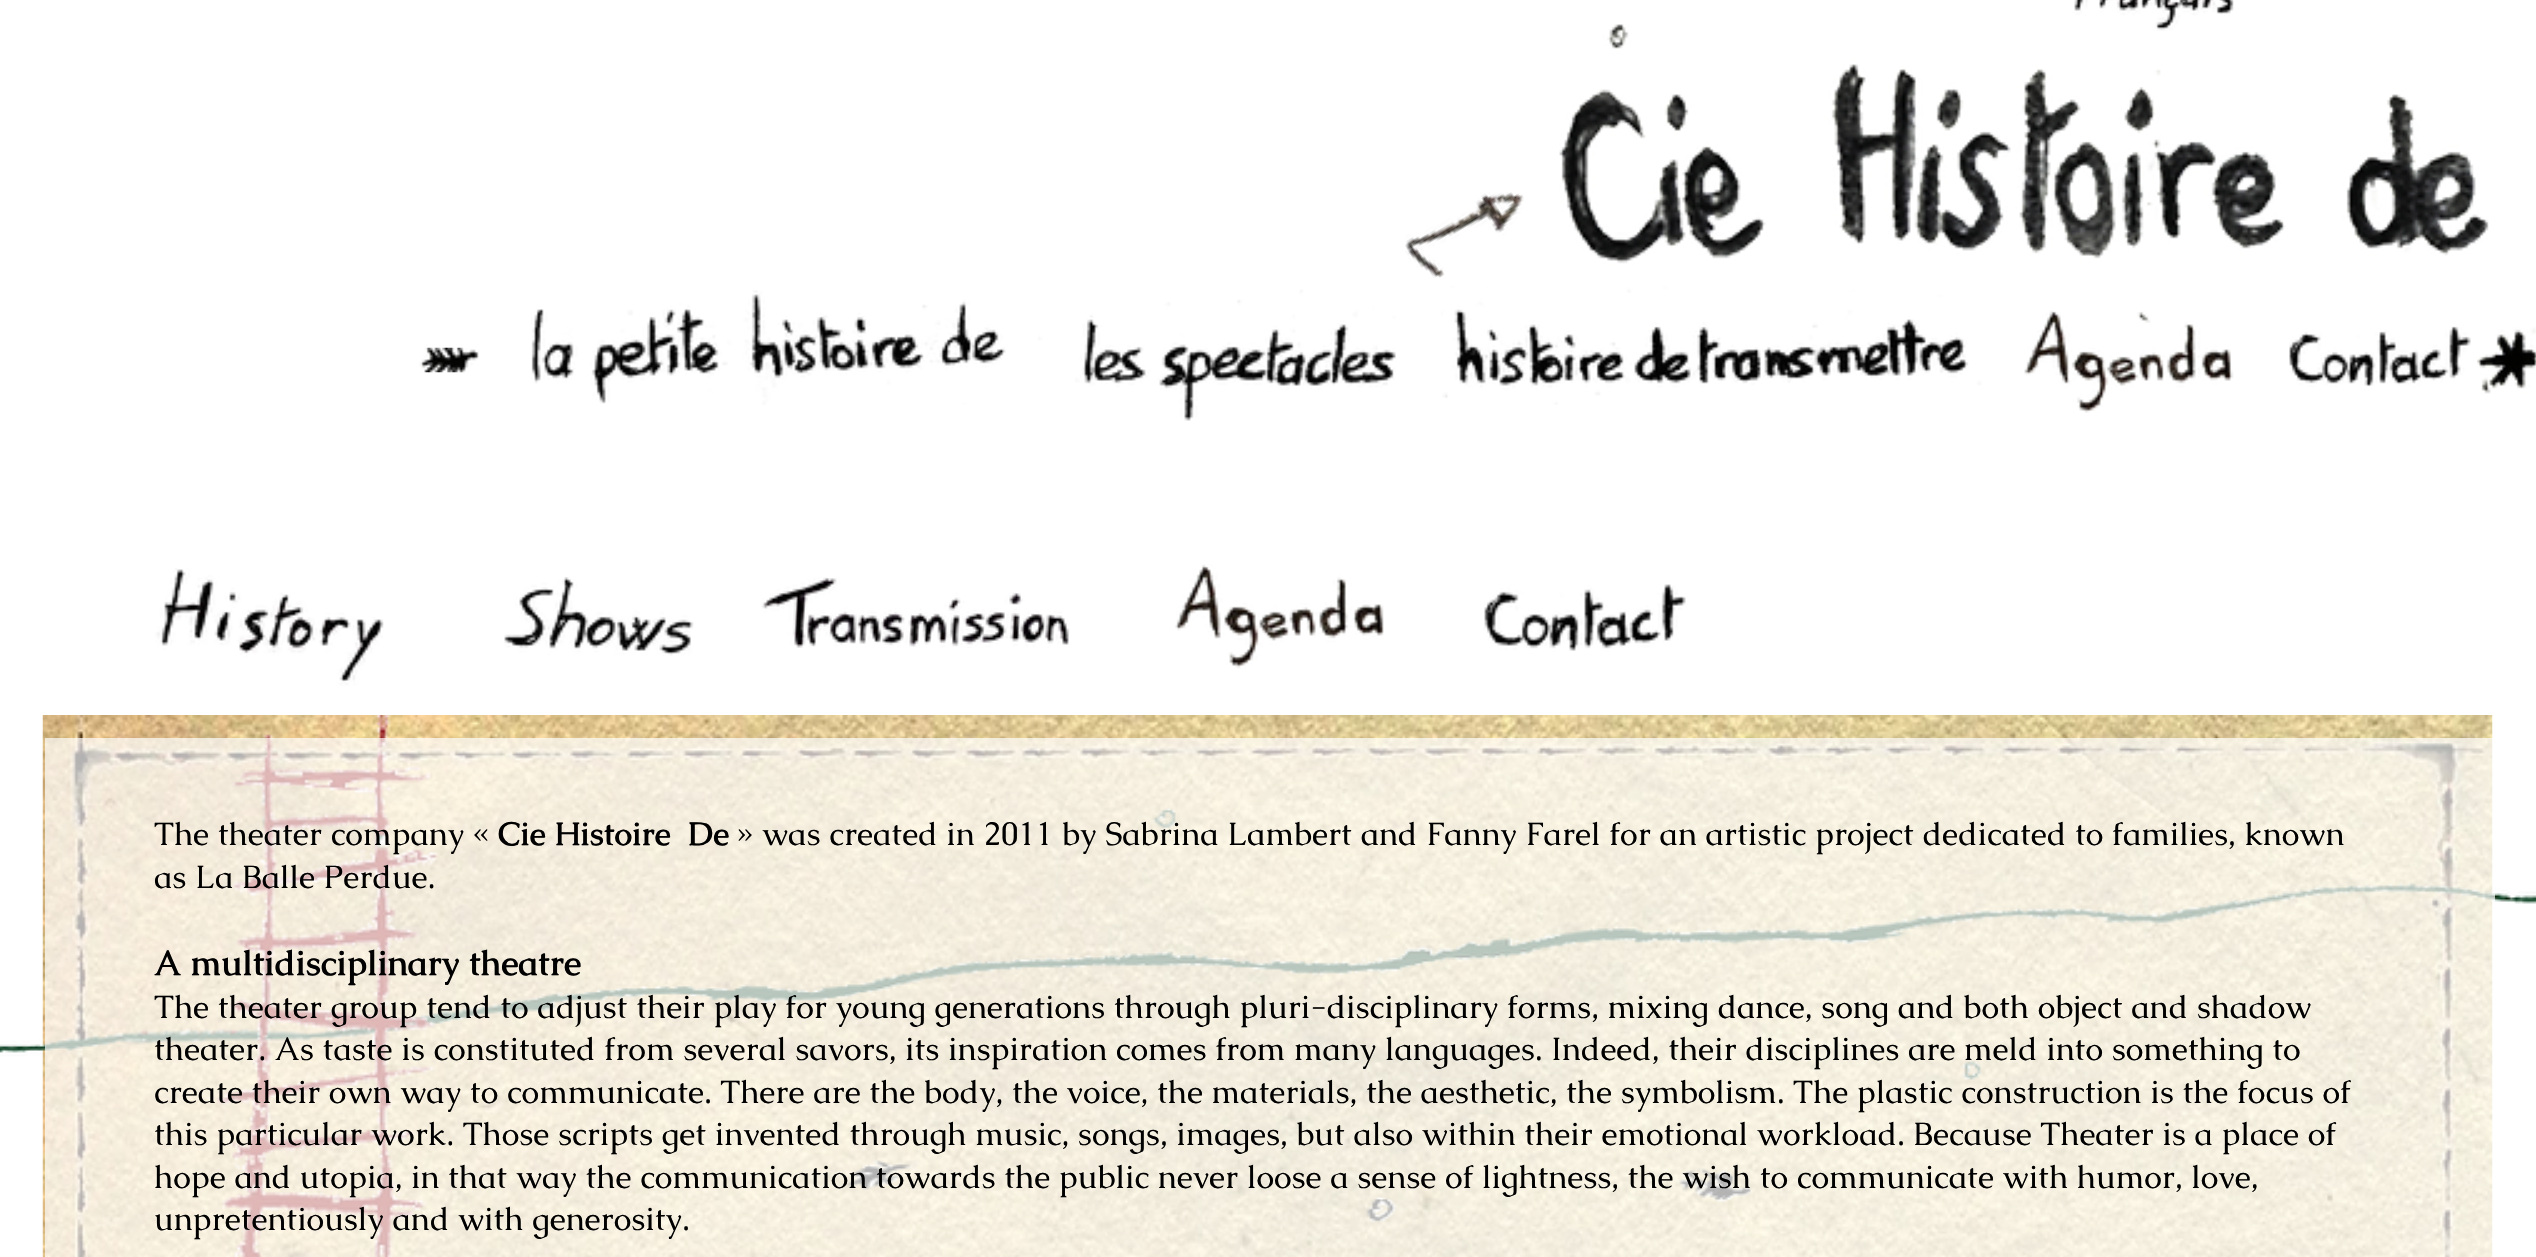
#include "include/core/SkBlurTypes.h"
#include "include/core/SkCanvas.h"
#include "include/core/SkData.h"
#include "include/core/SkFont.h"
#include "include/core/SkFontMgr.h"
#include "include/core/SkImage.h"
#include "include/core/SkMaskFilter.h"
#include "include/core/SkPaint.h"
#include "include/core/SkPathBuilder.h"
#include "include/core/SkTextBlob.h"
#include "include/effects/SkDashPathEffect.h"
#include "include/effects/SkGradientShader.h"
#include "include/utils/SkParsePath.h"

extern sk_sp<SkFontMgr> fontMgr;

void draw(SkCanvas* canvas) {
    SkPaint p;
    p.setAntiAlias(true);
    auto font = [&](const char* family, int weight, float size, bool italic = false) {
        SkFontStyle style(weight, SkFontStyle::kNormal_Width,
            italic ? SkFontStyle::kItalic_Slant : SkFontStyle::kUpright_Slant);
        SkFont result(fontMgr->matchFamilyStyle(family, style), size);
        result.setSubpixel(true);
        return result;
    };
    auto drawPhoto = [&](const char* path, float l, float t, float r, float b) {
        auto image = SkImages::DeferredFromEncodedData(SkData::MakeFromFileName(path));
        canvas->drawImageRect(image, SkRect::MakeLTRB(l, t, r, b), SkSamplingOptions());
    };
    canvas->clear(0xFFFFFFFF);
    drawPhoto("media/1.png", 1405, 192, 1524, 278);
    drawPhoto("media/2.png", 1559, 24, 2489, 323);
    drawPhoto("media/3.png", 419, 347, 479, 373);
    drawPhoto("media/4.png", 531, 290, 1006, 405);
    drawPhoto("media/5.png", 1038, 289, 1396, 421);
    drawPhoto("media/6.png", 1441, 286, 1982, 405);
    drawPhoto("media/7.png", 2024, 310, 2234, 413);
    drawPhoto("media/8.png", 2289, 326, 2471, 387);
    drawPhoto("media/9.png", 2477, 327, 2536, 394);
    drawPhoto("media/10.png", 2074, 0, 2234, 31);
    drawPhoto("media/11.png", 155, 568, 384, 686);
    drawPhoto("media/12.png", 504, 577, 694, 656);
    drawPhoto("media/13.png", 761, 577, 1070, 648);
    drawPhoto("media/14.png", 1175, 564, 1384, 669);
    drawPhoto("media/15.png", 1483, 584, 1686, 651);
    drawPhoto("media/16.png", 42, 715, 2493, 1257);
    drawPhoto("media/18.png", 0, 807, 2536, 1223);
    drawPhoto("media/17.png", 217, 715, 439, 1257);
    auto font1 = font("Caudex", 400, 32.5f);
    p.setColor(0xFF000000);
    canvas->drawString("The theater company «", 154, 845, font1, p);
    auto font2 = font("Caudex", 700, 32.5f);
    canvas->drawString("Cie Histoire  De", 498, 845, font2, p);
    canvas->drawString("» was created in 2011 by Sabrina Lambert and Fanny Farel for an artistic project dedicated to families, known", 737, 845, font1, p);
    canvas->drawString("as La Balle Perdue.", 154, 888, font1, p);
    auto font3 = font("Caudex", 700, 35);
    canvas->drawString("A multidisciplinary theatre", 154, 975, font3, p);
    {
        const struct { const char* s; float x, y; } items[] = {
            {"The theater group tend to adjust their play for young generations through pluri-disciplinary forms, mixing dance, song and both object and shadow", 154, 1018},
            {"theater. As taste is constituted from several savors, its inspiration comes from many languages. Indeed, their disciplines are meld into something to", 154, 1060},
            {"create their own way to communicate. There are the body, the voice, the materials, the aesthetic, the symbolism. The plastic construction is the focus of", 154, 1103},
            {"this particular work. Those scripts get invented through music, songs, images, but also within their emotional workload. Because Theater is a place of", 154, 1145},
            {"hope and utopia, in that way the communication towards the public never loose a sense of lightness, the wish to communicate with humor, love,", 154, 1188},
            {"unpretentiously and with generosity.", 154, 1230},
        };
        for (auto [s, x, y] : items) {
            canvas->drawString(s, x, y, font1, p);
        }
    }
}
